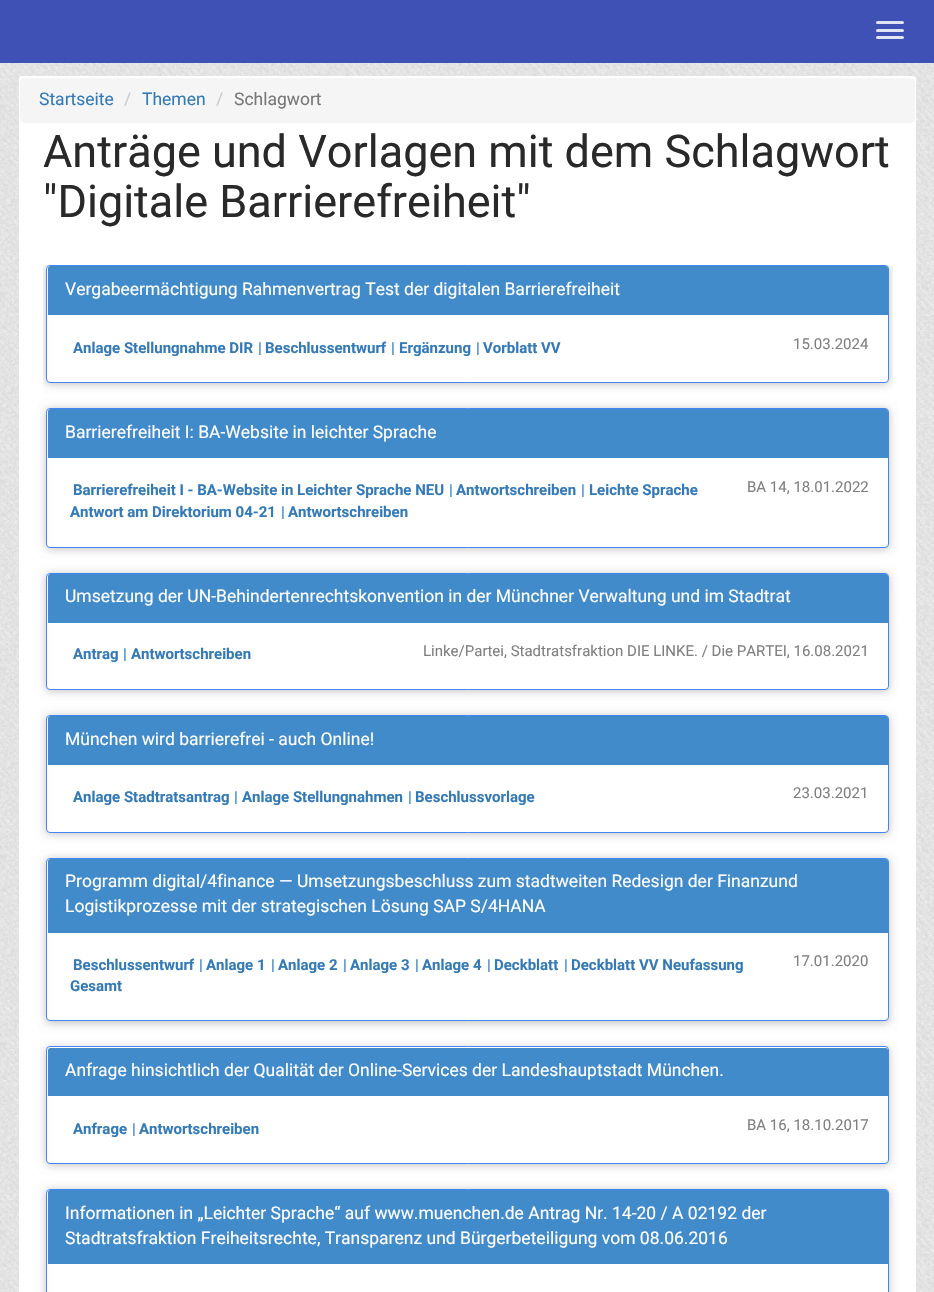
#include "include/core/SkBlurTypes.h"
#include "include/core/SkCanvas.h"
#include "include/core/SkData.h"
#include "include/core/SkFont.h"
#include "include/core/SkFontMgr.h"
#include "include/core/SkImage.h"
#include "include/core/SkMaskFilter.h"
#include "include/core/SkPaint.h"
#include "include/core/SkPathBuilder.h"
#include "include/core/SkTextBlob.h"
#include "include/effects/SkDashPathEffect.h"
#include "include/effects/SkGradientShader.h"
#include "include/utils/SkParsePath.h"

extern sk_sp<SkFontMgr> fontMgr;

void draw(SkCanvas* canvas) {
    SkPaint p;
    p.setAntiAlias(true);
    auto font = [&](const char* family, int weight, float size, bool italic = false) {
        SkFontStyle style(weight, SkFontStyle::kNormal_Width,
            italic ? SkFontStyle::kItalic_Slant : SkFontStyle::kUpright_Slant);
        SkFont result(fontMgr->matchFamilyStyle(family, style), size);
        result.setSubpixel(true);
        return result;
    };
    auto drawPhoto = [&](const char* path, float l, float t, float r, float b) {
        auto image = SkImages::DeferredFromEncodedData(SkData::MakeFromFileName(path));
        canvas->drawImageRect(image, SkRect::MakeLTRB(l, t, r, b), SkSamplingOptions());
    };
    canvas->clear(0xFFFFFFFF);
    drawPhoto("media/1.png", 0, 63, 934, 1292);
    p.setColor(0xFF3F51B5);
    canvas->drawRect(SkRect::MakeLTRB(0, 0, 934, 63), p);
    p.setColor(0xFFE0E3F3);
    canvas->drawRoundRect(SkRect::MakeLTRB(876, 21, 904, 24), 1.5f, 1.5f, p);
    canvas->drawRoundRect(SkRect::MakeLTRB(876, 29, 904, 32), 1.5f, 1.5f, p);
    canvas->drawRoundRect(SkRect::MakeLTRB(876, 36, 904, 39), 1.5f, 1.5f, p);
    p.setColor(0xFFFFFFFF);
    canvas->drawRoundRect(SkRect::MakeLTRB(19, 76, 916, 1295), 2.5f, 2.5f, p);
    p.setColor(0xFFF5F5F5);
    canvas->drawRoundRect(SkRect::MakeLTRB(20, 78, 915, 123), 5, 5, p);
    auto font1 = font("Roboto", 400, 17.5f);
    p.setColor(0xFF337AB7);
    canvas->drawString("Startseite", 39, 105, font1, p);
    p.setColor(0xFFCCCCCC);
    canvas->drawString("/", 124, 105, font1, p);
    p.setColor(0xFF337AB7);
    canvas->drawString("Themen", 142, 105, font1, p);
    p.setColor(0xFFCCCCCC);
    canvas->drawString("/", 216, 105, font1, p);
    p.setColor(0xFF777777);
    canvas->drawString("Schlagwort", 234, 105, font1, p);
    auto font2 = font("Roboto", 400, 45);
    p.setColor(0xFF292929);
    canvas->drawString("Anträge und Vorlagen mit dem Schlagwort", 43, 167, font2, p);
    canvas->drawString("\"Digitale Barrierefreiheit\"", 43, 217, font2, p);
    canvas->save();
    canvas->clipRect(SkRect::MakeLTRB(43, 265, 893, 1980));
    p.setColor(0x1F000000);
    p.setMaskFilter(SkMaskFilter::MakeBlur(kNormal_SkBlurStyle, 4));
    canvas->drawRoundRect(SkRect::MakeLTRB(46, 266, 889, 384), 4, 4, p);
    p.setMaskFilter(nullptr);
    p.setMaskFilter(SkMaskFilter::MakeBlur(kNormal_SkBlurStyle, 4));
    canvas->drawRoundRect(SkRect::MakeLTRB(46, 266, 889, 384), 4, 4, p);
    p.setMaskFilter(nullptr);
    canvas->restore();
    p.setColor(0xFFFFFFFF);
    canvas->drawRoundRect(SkRect::MakeLTRB(46.5f, 265.5f, 888.5f, 382.5f), 3.5f, 3.5f, p);
    p.setStyle(SkPaint::kStroke_Style);
    p.setStrokeWidth(1);
    p.setColor(0xFF4285F4);
    canvas->drawRoundRect(SkRect::MakeLTRB(46.5f, 265.5f, 888.5f, 382.5f), 3.5f, 3.5f, p);
    canvas->save();
    canvas->clipPath(SkPathBuilder().moveTo(50.5f, 266).lineTo(885.5f, 266).cubicTo(887, 266, 888, 267, 888, 268.5f).lineTo(888, 378.5f).cubicTo(888, 380, 887, 381, 885.5f, 381).lineTo(50.5f, 381).cubicTo(49, 381, 48, 380, 48, 378.5f).lineTo(48, 268.5f).cubicTo(48, 267, 49, 266, 50.5f, 266).close().detach(), true);
    p.setStyle(SkPaint::kFill_Style);
    p.setColor(0xFF428BCA);
    canvas->drawPath(SkPathBuilder().moveTo(50, 265).lineTo(885, 265).cubicTo(887, 265, 889, 267, 889, 269).lineTo(889, 315).lineTo(46, 315).lineTo(46, 269).cubicTo(46, 267, 48, 265, 50, 265).close().detach(), p);
    canvas->restore();
    p.setColor(0xFFFFFFFF);
    canvas->drawString("Vergabeermächtigung Rahmenvertrag Test der digitalen Barrierefreiheit", 65, 295, font1, p);
    auto font3 = font("Roboto", 700, 15);
    p.setColor(0xFF337AB7);
    canvas->drawString("Anlage Stellungnahme DIR", 73, 353, font3, p);
    p.setColor(0xFF428BCA);
    canvas->drawString("|", 258, 353, font3, p);
    p.setColor(0xFF337AB7);
    canvas->drawString("Beschlussentwurf", 265, 353, font3, p);
    p.setColor(0xFF428BCA);
    canvas->drawString("|", 391, 353, font3, p);
    p.setColor(0xFF337AB7);
    canvas->drawString("Ergänzung", 399, 353, font3, p);
    p.setColor(0xFF428BCA);
    canvas->drawString("|", 476, 353, font3, p);
    p.setColor(0xFF337AB7);
    canvas->drawString("Vorblatt VV", 483, 353, font3, p);
    auto font4 = font("Roboto", 400, 15);
    p.setColor(0xFF808080);
    canvas->drawString("15.03.2024", 793, 349, font4, p);
    p.setColor(0x1F000000);
    p.setMaskFilter(SkMaskFilter::MakeBlur(kNormal_SkBlurStyle, 4));
    canvas->drawRoundRect(SkRect::MakeLTRB(46, 409, 889, 549), 4, 4, p);
    p.setMaskFilter(nullptr);
    p.setMaskFilter(SkMaskFilter::MakeBlur(kNormal_SkBlurStyle, 4));
    canvas->drawRoundRect(SkRect::MakeLTRB(46, 409, 889, 549), 4, 4, p);
    p.setMaskFilter(nullptr);
    p.setColor(0xFFFFFFFF);
    canvas->drawRoundRect(SkRect::MakeLTRB(46.5f, 408.5f, 888.5f, 547.5f), 3.5f, 3.5f, p);
    p.setStyle(SkPaint::kStroke_Style);
    p.setColor(0xFF4285F4);
    canvas->drawRoundRect(SkRect::MakeLTRB(46.5f, 408.5f, 888.5f, 547.5f), 3.5f, 3.5f, p);
    canvas->save();
    canvas->clipPath(SkPathBuilder().moveTo(50.5f, 409).lineTo(885.5f, 409).cubicTo(887, 409, 888, 410, 888, 411.5f).lineTo(888, 543.5f).cubicTo(888, 545, 887, 546, 885.5f, 546).lineTo(50.5f, 546).cubicTo(49, 546, 48, 545, 48, 543.5f).lineTo(48, 411.5f).cubicTo(48, 410, 49, 409, 50.5f, 409).close().detach(), true);
    p.setStyle(SkPaint::kFill_Style);
    p.setColor(0xFF428BCA);
    canvas->drawPath(SkPathBuilder().moveTo(50, 408).lineTo(885, 408).cubicTo(887, 408, 889, 410, 889, 412).lineTo(889, 458).lineTo(46, 458).lineTo(46, 412).cubicTo(46, 410, 48, 408, 50, 408).close().detach(), p);
    canvas->restore();
    p.setColor(0xFFFFFFFF);
    canvas->drawString("Barrierefreiheit I: BA-Website in leichter Sprache", 65, 438, font1, p);
    p.setColor(0xFF337AB7);
    canvas->drawString("Barrierefreiheit I - BA-Website in Leichter Sprache NEU", 73, 495, font3, p);
    p.setColor(0xFF428BCA);
    canvas->drawString("|", 449, 495, font3, p);
    p.setColor(0xFF337AB7);
    canvas->drawString("Antwortschreiben", 456, 495, font3, p);
    p.setColor(0xFF428BCA);
    canvas->drawString("|", 581, 495, font3, p);
    p.setColor(0xFF337AB7);
    canvas->drawString("Leichte Sprache", 589, 495, font3, p);
    canvas->drawString("Antwort am Direktorium 04-21", 70, 517, font3, p);
    p.setColor(0xFF428BCA);
    canvas->drawString("|", 281, 517, font3, p);
    p.setColor(0xFF337AB7);
    canvas->drawString("Antwortschreiben", 288, 517, font3, p);
    p.setColor(0xFF808080);
    canvas->drawString("BA 14, 18.01.2022", 747, 492, font4, p);
    p.setColor(0x1F000000);
    p.setMaskFilter(SkMaskFilter::MakeBlur(kNormal_SkBlurStyle, 4));
    canvas->drawRoundRect(SkRect::MakeLTRB(46, 574, 889, 691), 4, 4, p);
    p.setMaskFilter(nullptr);
    p.setMaskFilter(SkMaskFilter::MakeBlur(kNormal_SkBlurStyle, 4));
    canvas->drawRoundRect(SkRect::MakeLTRB(46, 574, 889, 691), 4, 4, p);
    p.setMaskFilter(nullptr);
    p.setColor(0xFFFFFFFF);
    canvas->drawRoundRect(SkRect::MakeLTRB(46.5f, 573.5f, 888.5f, 689.5f), 3.5f, 3.5f, p);
    p.setStyle(SkPaint::kStroke_Style);
    p.setColor(0xFF4285F4);
    canvas->drawRoundRect(SkRect::MakeLTRB(46.5f, 573.5f, 888.5f, 689.5f), 3.5f, 3.5f, p);
    canvas->save();
    canvas->clipPath(SkPathBuilder().moveTo(50.5f, 574).lineTo(885.5f, 574).cubicTo(887, 574, 888, 575, 888, 576.5f).lineTo(888, 686.5f).cubicTo(888, 688, 887, 689, 885.5f, 689).lineTo(50.5f, 689).cubicTo(49, 689, 48, 688, 48, 686.5f).lineTo(48, 576.5f).cubicTo(48, 575, 49, 574, 50.5f, 574).close().detach(), true);
    p.setStyle(SkPaint::kFill_Style);
    p.setColor(0xFF428BCA);
    canvas->drawPath(SkPathBuilder().moveTo(50, 573).lineTo(885, 573).cubicTo(887, 573, 889, 575, 889, 577).lineTo(889, 623).lineTo(46, 623).lineTo(46, 577).cubicTo(46, 575, 48, 573, 50, 573).close().detach(), p);
    canvas->restore();
    p.setColor(0xFFFFFFFF);
    canvas->drawString("Umsetzung der UN-Behindertenrechtskonvention in der Münchner Verwaltung und im Stadtrat", 65, 602, font1, p);
    p.setColor(0xFF337AB7);
    canvas->drawString("Antrag", 73, 659, font3, p);
    p.setColor(0xFF428BCA);
    canvas->drawString("|", 123, 659, font3, p);
    p.setColor(0xFF337AB7);
    canvas->drawString("Antwortschreiben", 131, 659, font3, p);
    p.setColor(0xFF808080);
    canvas->drawString("Linke/Partei, Stadtratsfraktion DIE LINKE. / Die PARTEI, 16.08.2021", 423, 656, font4, p);
    p.setColor(0x1F000000);
    p.setMaskFilter(SkMaskFilter::MakeBlur(kNormal_SkBlurStyle, 4));
    canvas->drawRoundRect(SkRect::MakeLTRB(46, 716, 889, 834), 4, 4, p);
    p.setMaskFilter(nullptr);
    p.setMaskFilter(SkMaskFilter::MakeBlur(kNormal_SkBlurStyle, 4));
    canvas->drawRoundRect(SkRect::MakeLTRB(46, 716, 889, 834), 4, 4, p);
    p.setMaskFilter(nullptr);
    p.setColor(0xFFFFFFFF);
    canvas->drawRoundRect(SkRect::MakeLTRB(46.5f, 715.5f, 888.5f, 832.5f), 3.5f, 3.5f, p);
    p.setStyle(SkPaint::kStroke_Style);
    p.setColor(0xFF4285F4);
    canvas->drawRoundRect(SkRect::MakeLTRB(46.5f, 715.5f, 888.5f, 832.5f), 3.5f, 3.5f, p);
    canvas->save();
    canvas->clipPath(SkPathBuilder().moveTo(50.5f, 716).lineTo(885.5f, 716).cubicTo(887, 716, 888, 717, 888, 718.5f).lineTo(888, 828.5f).cubicTo(888, 830, 887, 831, 885.5f, 831).lineTo(50.5f, 831).cubicTo(49, 831, 48, 830, 48, 828.5f).lineTo(48, 718.5f).cubicTo(48, 717, 49, 716, 50.5f, 716).close().detach(), true);
    p.setStyle(SkPaint::kFill_Style);
    p.setColor(0xFF428BCA);
    canvas->drawPath(SkPathBuilder().moveTo(50, 715).lineTo(885, 715).cubicTo(887, 715, 889, 717, 889, 719).lineTo(889, 765).lineTo(46, 765).lineTo(46, 719).cubicTo(46, 717, 48, 715, 50, 715).close().detach(), p);
    canvas->restore();
    p.setColor(0xFFFFFFFF);
    canvas->drawString("München wird barrierefrei - auch Online!", 65, 745, font1, p);
    p.setColor(0xFF337AB7);
    canvas->drawString("Anlage Stadtratsantrag", 73, 802, font3, p);
    p.setColor(0xFF428BCA);
    canvas->drawString("|", 234, 802, font3, p);
    p.setColor(0xFF337AB7);
    canvas->drawString("Anlage Stellungnahmen", 242, 802, font3, p);
    p.setColor(0xFF428BCA);
    canvas->drawString("|", 408, 802, font3, p);
    p.setColor(0xFF337AB7);
    canvas->drawString("Beschlussvorlage", 415, 802, font3, p);
    p.setColor(0xFF808080);
    canvas->drawString("23.03.2021", 793, 798, font4, p);
    p.setColor(0x1F000000);
    p.setMaskFilter(SkMaskFilter::MakeBlur(kNormal_SkBlurStyle, 4));
    canvas->drawRoundRect(SkRect::MakeLTRB(46, 859, 889, 1023), 4, 4, p);
    p.setMaskFilter(nullptr);
    p.setMaskFilter(SkMaskFilter::MakeBlur(kNormal_SkBlurStyle, 4));
    canvas->drawRoundRect(SkRect::MakeLTRB(46, 859, 889, 1023), 4, 4, p);
    p.setMaskFilter(nullptr);
    p.setColor(0xFFFFFFFF);
    canvas->drawRoundRect(SkRect::MakeLTRB(46.5f, 858.5f, 888.5f, 1020.5f), 3.5f, 3.5f, p);
    p.setStyle(SkPaint::kStroke_Style);
    p.setColor(0xFF4285F4);
    canvas->drawRoundRect(SkRect::MakeLTRB(46.5f, 858.5f, 888.5f, 1020.5f), 3.5f, 3.5f, p);
    canvas->save();
    canvas->clipPath(SkPathBuilder().moveTo(50.5f, 859).lineTo(885.5f, 859).cubicTo(887, 859, 888, 860, 888, 861.5f).lineTo(888, 1017.5f).cubicTo(888, 1019, 887, 1020, 885.5f, 1020).lineTo(50.5f, 1020).cubicTo(49, 1020, 48, 1019, 48, 1017.5f).lineTo(48, 861.5f).cubicTo(48, 860, 49, 859, 50.5f, 859).close().detach(), true);
    p.setStyle(SkPaint::kFill_Style);
    p.setColor(0xFF428BCA);
    canvas->drawPath(SkPathBuilder().moveTo(50, 858).lineTo(885, 858).cubicTo(887, 858, 889, 860, 889, 862).lineTo(889, 933).lineTo(46, 933).lineTo(46, 862).cubicTo(46, 860, 48, 858, 50, 858).close().detach(), p);
    canvas->restore();
    p.setColor(0xFFFFFFFF);
    canvas->drawString("Programm digital/4finance — Umsetzungsbeschluss zum stadtweiten Redesign der Finanzund", 65, 887, font1, p);
    canvas->drawString("Logistikprozesse mit der strategischen Lösung SAP S/4HANA", 65, 912, font1, p);
    p.setColor(0xFF337AB7);
    canvas->drawString("Beschlussentwurf", 73, 970, font3, p);
    p.setColor(0xFF428BCA);
    canvas->drawString("|", 199, 970, font3, p);
    p.setColor(0xFF337AB7);
    canvas->drawString("Anlage 1", 206, 970, font3, p);
    p.setColor(0xFF428BCA);
    canvas->drawString("|", 271, 970, font3, p);
    p.setColor(0xFF337AB7);
    canvas->drawString("Anlage 2", 278, 970, font3, p);
    p.setColor(0xFF428BCA);
    canvas->drawString("|", 343, 970, font3, p);
    p.setColor(0xFF337AB7);
    canvas->drawString("Anlage 3", 350, 970, font3, p);
    p.setColor(0xFF428BCA);
    canvas->drawString("|", 415, 970, font3, p);
    p.setColor(0xFF337AB7);
    canvas->drawString("Anlage 4", 422, 970, font3, p);
    p.setColor(0xFF428BCA);
    canvas->drawString("|", 487, 970, font3, p);
    p.setColor(0xFF337AB7);
    canvas->drawString("Deckblatt", 494, 970, font3, p);
    p.setColor(0xFF428BCA);
    canvas->drawString("|", 564, 970, font3, p);
    p.setColor(0xFF337AB7);
    canvas->drawString("Deckblatt VV Neufassung", 571, 970, font3, p);
    canvas->drawString("Gesamt", 70, 991, font3, p);
    p.setColor(0xFF808080);
    canvas->drawString("17.01.2020", 793, 966, font4, p);
    p.setColor(0x1F000000);
    p.setMaskFilter(SkMaskFilter::MakeBlur(kNormal_SkBlurStyle, 4));
    canvas->drawRoundRect(SkRect::MakeLTRB(46, 1048, 889, 1165), 4, 4, p);
    p.setMaskFilter(nullptr);
    p.setMaskFilter(SkMaskFilter::MakeBlur(kNormal_SkBlurStyle, 4));
    canvas->drawRoundRect(SkRect::MakeLTRB(46, 1048, 889, 1165), 4, 4, p);
    p.setMaskFilter(nullptr);
    p.setColor(0xFFFFFFFF);
    canvas->drawRoundRect(SkRect::MakeLTRB(46.5f, 1046.5f, 888.5f, 1163.5f), 3.5f, 3.5f, p);
    p.setStyle(SkPaint::kStroke_Style);
    p.setColor(0xFF4285F4);
    canvas->drawRoundRect(SkRect::MakeLTRB(46.5f, 1046.5f, 888.5f, 1163.5f), 3.5f, 3.5f, p);
    canvas->save();
    canvas->clipPath(SkPathBuilder().moveTo(50.5f, 1048).lineTo(885.5f, 1048).cubicTo(887, 1048, 888, 1049, 888, 1050.5f).lineTo(888, 1160.5f).cubicTo(888, 1162, 887, 1163, 885.5f, 1163).lineTo(50.5f, 1163).cubicTo(49, 1163, 48, 1162, 48, 1160.5f).lineTo(48, 1050.5f).cubicTo(48, 1049, 49, 1048, 50.5f, 1048).close().detach(), true);
    p.setStyle(SkPaint::kFill_Style);
    p.setColor(0xFF428BCA);
    canvas->drawPath(SkPathBuilder().moveTo(50, 1046).lineTo(885, 1046).cubicTo(887, 1046, 889, 1048, 889, 1050).lineTo(889, 1096).lineTo(46, 1096).lineTo(46, 1050).cubicTo(46, 1048, 48, 1046, 50, 1046).close().detach(), p);
    canvas->restore();
    p.setColor(0xFFFFFFFF);
    canvas->drawString("Anfrage hinsichtlich der Qualität der Online-Services der Landeshauptstadt München.", 65, 1076, font1, p);
    p.setColor(0xFF337AB7);
    canvas->drawString("Anfrage", 73, 1134, font3, p);
    p.setColor(0xFF428BCA);
    canvas->drawString("|", 132, 1134, font3, p);
    p.setColor(0xFF337AB7);
    canvas->drawString("Antwortschreiben", 139, 1134, font3, p);
    p.setColor(0xFF808080);
    canvas->drawString("BA 16, 18.10.2017", 747, 1130, font4, p);
    p.setColor(0x1F000000);
    p.setMaskFilter(SkMaskFilter::MakeBlur(kNormal_SkBlurStyle, 4));
    canvas->drawRoundRect(SkRect::MakeLTRB(46, 1190, 889, 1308), 4, 4, p);
    p.setMaskFilter(nullptr);
    p.setMaskFilter(SkMaskFilter::MakeBlur(kNormal_SkBlurStyle, 4));
    canvas->drawRoundRect(SkRect::MakeLTRB(46, 1190, 889, 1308), 4, 4, p);
    p.setMaskFilter(nullptr);
    p.setColor(0xFFFFFFFF);
    canvas->drawRoundRect(SkRect::MakeLTRB(46.5f, 1189.5f, 888.5f, 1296.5f), 3.5f, 3.5f, p);
    p.setStyle(SkPaint::kStroke_Style);
    p.setColor(0xFF4285F4);
    canvas->drawRoundRect(SkRect::MakeLTRB(46.5f, 1189.5f, 888.5f, 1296.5f), 3.5f, 3.5f, p);
    canvas->save();
    canvas->clipPath(SkPathBuilder().moveTo(50.5f, 1190).lineTo(885.5f, 1190).cubicTo(887, 1190, 888, 1191, 888, 1192.5f).lineTo(888, 1327.5f).cubicTo(888, 1329, 887, 1330, 885.5f, 1330).lineTo(50.5f, 1330).cubicTo(49, 1330, 48, 1329, 48, 1327.5f).lineTo(48, 1192.5f).cubicTo(48, 1191, 49, 1190, 50.5f, 1190).close().detach(), true);
    p.setStyle(SkPaint::kFill_Style);
    p.setColor(0xFF428BCA);
    canvas->drawPath(SkPathBuilder().moveTo(50, 1189).lineTo(885, 1189).cubicTo(887, 1189, 889, 1191, 889, 1193).lineTo(889, 1264).lineTo(46, 1264).lineTo(46, 1193).cubicTo(46, 1191, 48, 1189, 50, 1189).close().detach(), p);
    canvas->restore();
    p.setColor(0xFFFFFFFF);
    canvas->drawString("Informationen in „Leichter Sprache“ auf www.muenchen.de Antrag Nr. 14-20 / A 02192 der", 65, 1219, font1, p);
    canvas->drawString("Stadtratsfraktion Freiheitsrechte, Transparenz und Bürgerbeteiligung vom 08.06.2016", 65, 1244, font1, p);
}
